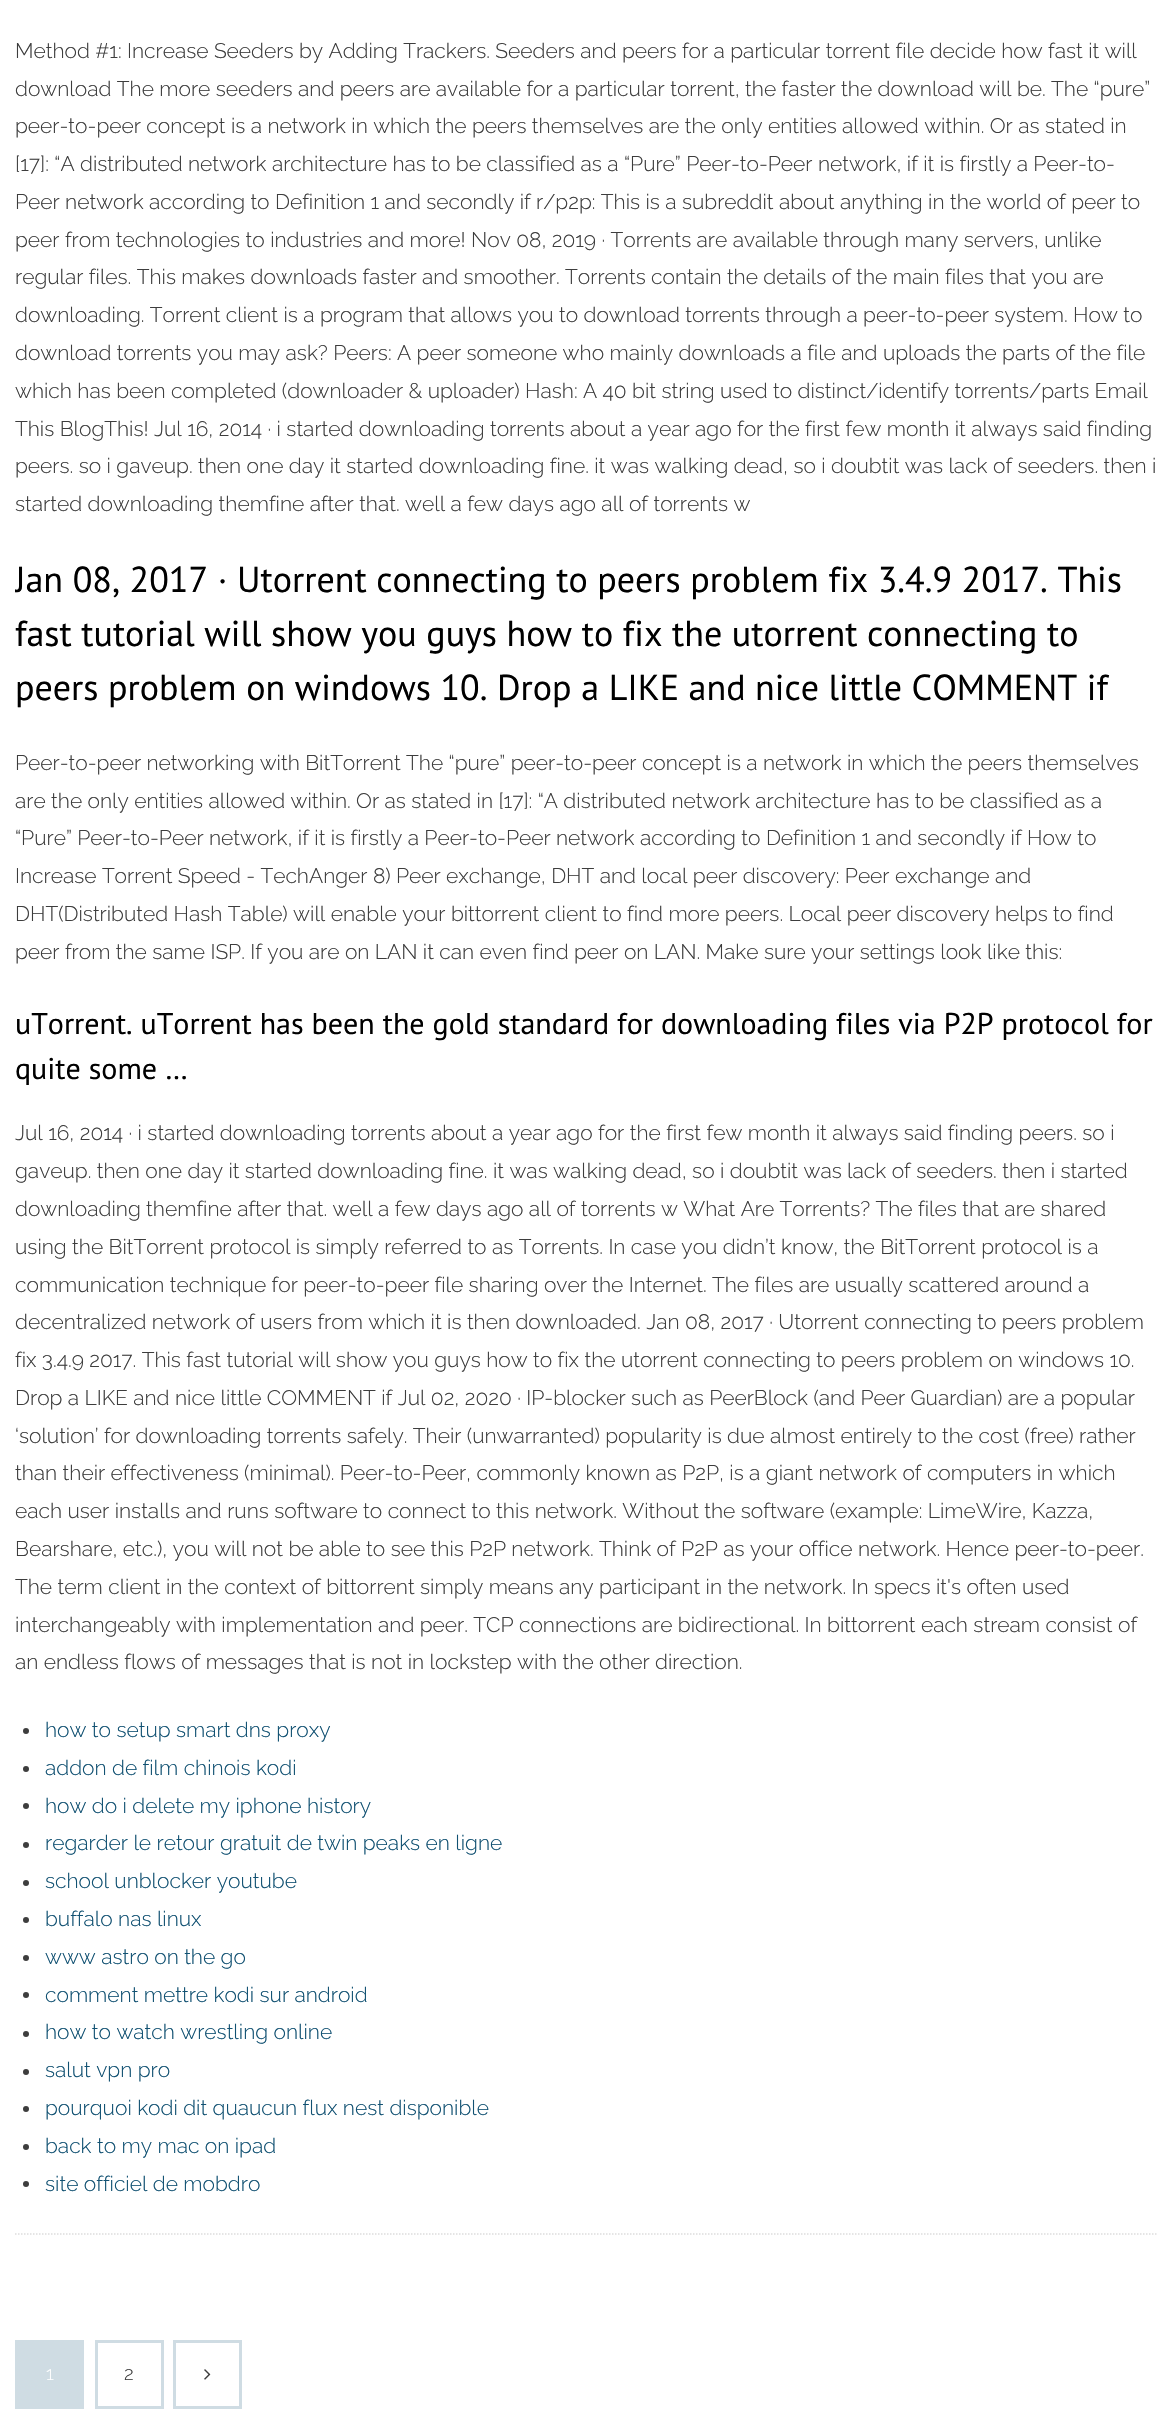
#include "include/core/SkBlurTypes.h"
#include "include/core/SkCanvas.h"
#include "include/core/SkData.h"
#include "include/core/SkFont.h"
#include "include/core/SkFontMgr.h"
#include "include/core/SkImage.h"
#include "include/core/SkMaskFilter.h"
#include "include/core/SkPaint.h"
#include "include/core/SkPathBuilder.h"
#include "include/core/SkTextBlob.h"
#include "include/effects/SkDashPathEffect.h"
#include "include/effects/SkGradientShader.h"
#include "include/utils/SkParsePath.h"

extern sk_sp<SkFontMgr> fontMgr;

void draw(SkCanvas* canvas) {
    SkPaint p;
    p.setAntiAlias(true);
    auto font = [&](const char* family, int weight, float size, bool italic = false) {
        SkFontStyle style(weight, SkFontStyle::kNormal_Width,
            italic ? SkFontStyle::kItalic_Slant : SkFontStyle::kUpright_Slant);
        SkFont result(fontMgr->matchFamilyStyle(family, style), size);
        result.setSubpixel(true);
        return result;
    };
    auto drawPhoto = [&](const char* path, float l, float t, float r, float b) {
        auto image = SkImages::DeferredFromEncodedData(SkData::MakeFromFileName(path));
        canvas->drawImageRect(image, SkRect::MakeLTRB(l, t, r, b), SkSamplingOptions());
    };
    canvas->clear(0xFFFFFFFF);
    p.setStyle(SkPaint::kStroke_Style);
    p.setStrokeWidth(1.5f);
    p.setColor(0xFFDDDDDD);
    p.setPathEffect(SkDashPathEffect::Make({{1.5f, 1.5f}}, 0));
    canvas->drawPath(SkPathBuilder().moveTo(15, 2234).lineTo(1158, 2234).detach(), p);
    p.setPathEffect(nullptr);
    auto font1 = font("Raleway", 300, 21);
    p.setStyle(SkPaint::kFill_Style);
    p.setColor(0xFF3D3D3D);
    {
        const struct { const char* s; float x, y; } items[] = {
            {"Method #1: Increase Seeders by Adding Trackers. Seeders and peers for a particular torrent file decide how fast it will", 15, 58},
            {"download The more seeders and peers are available for a particular torrent, the faster the download will be. The “pure”", 15, 96},
            {"peer-to-peer concept is a network in which the peers themselves are the only entities allowed within. Or as stated in", 15, 133},
            {"[17]: “A distributed network architecture has to be classified as a “Pure” Peer-to-Peer network, if it is firstly a Peer-to-", 15, 171},
            {"Peer network according to Definition 1 and secondly if r/p2p: This is a subreddit about anything in the world of peer to", 15, 209},
            {"peer from technologies to industries and more! Nov 08, 2019 · Torrents are available through many servers, unlike", 15, 247},
            {"regular files. This makes downloads faster and smoother. Torrents contain the details of the main files that you are", 15, 284},
            {"downloading. Torrent client is a program that allows you to download torrents through a peer-to-peer system. How to", 15, 322},
            {"download torrents you may ask? Peers: A peer someone who mainly downloads a file and uploads the parts of the file", 15, 360},
            {"which has been completed (downloader & uploader) Hash: A 40 bit string used to distinct/identify torrents/parts Email", 15, 398},
            {"This BlogThis! Jul 16, 2014 · i started downloading torrents about a year ago for the first few month it always said finding", 15, 436},
            {"peers. so i gaveup. then one day it started downloading fine. it was walking dead, so i doubtit was lack of seeders. then i", 15, 473},
            {"started downloading themfine after that. well a few days ago all of torrents w", 15, 511},
        };
        for (auto [s, x, y] : items) {
            canvas->drawString(s, x, y, font1, p);
        }
    }
    canvas->save();
    canvas->clipRect(SkRect::MakeLTRB(15, 0, 1158, 2234));
    auto font2 = font("PT Sans", 400, 36);
    p.setColor(0xFF000000);
    canvas->drawString("Jan 08, 2017 ·", 15, 592, font2, p);
    canvas->restore();
    {
        const struct { const char* s; float x, y; } items[] = {
            {"Utorrent connecting to peers problem fix 3.4.9 2017. This", 237, 592},
            {"fast tutorial will show you guys how to fix the utorrent connecting to", 15, 646},
            {"peers problem on windows 10. Drop a LIKE and nice little COMMENT if", 15, 700},
        };
        for (auto [s, x, y] : items) {
            canvas->drawString(s, x, y, font2, p);
        }
    }
    p.setColor(0xFF3D3D3D);
    {
        const struct { const char* s; float x, y; } items[] = {
            {"Peer-to-peer networking with BitTorrent The “pure” peer-to-peer concept is a network in which the peers themselves", 15, 770},
            {"are the only entities allowed within. Or as stated in [17]: “A distributed network architecture has to be classified as a", 15, 808},
            {"“Pure” Peer-to-Peer network, if it is firstly a Peer-to-Peer network according to Definition 1 and secondly if How to", 15, 845},
            {"Increase Torrent Speed - TechAnger 8) Peer exchange, DHT and local peer discovery: Peer exchange and", 15, 883},
            {"DHT(Distributed Hash Table) will enable your bittorrent client to find more peers. Local peer discovery helps to find", 15, 921},
            {"peer from the same ISP. If you are on LAN it can even find peer on LAN. Make sure your settings look like this:", 15, 959},
        };
        for (auto [s, x, y] : items) {
            canvas->drawString(s, x, y, font1, p);
        }
    }
    auto font3 = font("PT Sans", 400, 30);
    p.setColor(0xFF000000);
    canvas->drawString("uTorrent. uTorrent has been the gold standard for downloading files via P2P protocol for", 15, 1034, font3, p);
    canvas->drawString("quite some …", 15, 1079, font3, p);
    p.setColor(0xFF3D3D3D);
    {
        const struct { const char* s; float x, y; } items[] = {
            {"Jul 16, 2014 · i started downloading torrents about a year ago for the first few month it always said finding peers. so i", 15, 1140},
            {"gaveup. then one day it started downloading fine. it was walking dead, so i doubtit was lack of seeders. then i started", 15, 1178},
            {"downloading themfine after that. well a few days ago all of torrents w What Are Torrents? The files that are shared", 15, 1216},
            {"using the BitTorrent protocol is simply referred to as Torrents. In case you didn’t know, the BitTorrent protocol is a", 15, 1254},
            {"communication technique for peer-to-peer file sharing over the Internet. The files are usually scattered around a", 15, 1292},
            {"decentralized network of users from which it is then downloaded. Jan 08, 2017 · Utorrent connecting to peers problem", 15, 1329},
            {"fix 3.4.9 2017. This fast tutorial will show you guys how to fix the utorrent connecting to peers problem on windows 10.", 15, 1367},
            {"Drop a LIKE and nice little COMMENT if Jul 02, 2020 · IP-blocker such as PeerBlock (and Peer Guardian) are a popular", 15, 1405},
            {"‘solution’ for downloading torrents safely. Their (unwarranted) popularity is due almost entirely to the cost (free) rather", 15, 1443},
            {"than their effectiveness (minimal). Peer-to-Peer, commonly known as P2P, is a giant network of computers in which", 15, 1480},
            {"each user installs and runs software to connect to this network. Without the software (example: LimeWire, Kazza,", 15, 1518},
            {"Bearshare, etc.), you will not be able to see this P2P network. Think of P2P as your office network. Hence peer-to-peer.", 15, 1556},
            {"The term client in the context of bittorrent simply means any participant in the network. In specs it's often used", 15, 1594},
            {"interchangeably with implementation and peer. TCP connections are bidirectional. In bittorrent each stream consist of", 15, 1632},
            {"an endless flows of messages that is not in lockstep with the other direction.", 15, 1669},
        };
        for (auto [s, x, y] : items) {
            canvas->drawString(s, x, y, font1, p);
        }
    }
    canvas->drawCircle(26, 1731, 3, p);
    p.setColor(0xFF115172);
    canvas->drawString("how to setup smart dns proxy", 45, 1737, font1, p);
    p.setColor(0xFF3D3D3D);
    canvas->drawCircle(26, 1769, 3, p);
    p.setColor(0xFF115172);
    canvas->drawString("addon de film chinois kodi", 45, 1775, font1, p);
    p.setColor(0xFF3D3D3D);
    canvas->drawCircle(26, 1806, 3, p);
    p.setColor(0xFF115172);
    canvas->drawString("how do i delete my iphone history", 45, 1813, font1, p);
    p.setColor(0xFF3D3D3D);
    canvas->drawCircle(26, 1845, 3, p);
    p.setColor(0xFF115172);
    canvas->drawString("regarder le retour gratuit de twin peaks en ligne", 45, 1850, font1, p);
    p.setColor(0xFF3D3D3D);
    canvas->drawCircle(26, 1883, 3, p);
    p.setColor(0xFF115172);
    canvas->drawString("school unblocker youtube", 45, 1888, font1, p);
    p.setColor(0xFF3D3D3D);
    canvas->drawCircle(26, 1920, 3, p);
    p.setColor(0xFF115172);
    canvas->drawString("buffalo nas linux", 45, 1926, font1, p);
    p.setColor(0xFF3D3D3D);
    canvas->drawCircle(26, 1958, 3, p);
    p.setColor(0xFF115172);
    canvas->drawString("www astro on the go", 45, 1964, font1, p);
    p.setColor(0xFF3D3D3D);
    canvas->drawCircle(26, 1995, 3, p);
    p.setColor(0xFF115172);
    canvas->drawString("comment mettre kodi sur android", 45, 2002, font1, p);
    p.setColor(0xFF3D3D3D);
    canvas->drawCircle(26, 2034, 3, p);
    p.setColor(0xFF115172);
    canvas->drawString("how to watch wrestling online", 45, 2039, font1, p);
    p.setColor(0xFF3D3D3D);
    canvas->drawCircle(26, 2072, 3, p);
    p.setColor(0xFF115172);
    canvas->drawString("salut vpn pro", 45, 2077, font1, p);
    p.setColor(0xFF3D3D3D);
    canvas->drawCircle(26, 2109, 3, p);
    p.setColor(0xFF115172);
    canvas->drawString("pourquoi kodi dit quaucun flux nest disponible", 45, 2115, font1, p);
    p.setColor(0xFF3D3D3D);
    canvas->drawCircle(26, 2147, 3, p);
    p.setColor(0xFF115172);
    canvas->drawString("back to my mac on ipad", 45, 2153, font1, p);
    p.setColor(0xFF3D3D3D);
    canvas->drawCircle(26, 2184, 3, p);
    p.setColor(0xFF115172);
    canvas->drawString("site officiel de mobdro", 45, 2191, font1, p);
    p.setStyle(SkPaint::kStroke_Style);
    p.setStrokeWidth(3);
    p.setColor(0xFFCFDCE3);
    canvas->drawRect(SkRect::MakeLTRB(16.5f, 2341.5f, 82.5f, 2407.5f), p);
    p.setStyle(SkPaint::kFill_Style);
    canvas->drawRect(SkRect::MakeLTRB(18, 2343, 81, 2406), p);
    auto font4 = font("Raleway", 300, 19);
    p.setColor(0xFFFFFFFF);
    canvas->drawString("1", 46, 2380, font4, p);
    p.setStyle(SkPaint::kStroke_Style);
    p.setColor(0xFFCFDCE3);
    canvas->drawRect(SkRect::MakeLTRB(96.5f, 2341.5f, 162.5f, 2407.5f), p);
    p.setStyle(SkPaint::kFill_Style);
    p.setColor(0xFF3D3D3D);
    canvas->drawString("2", 124, 2380, font4, p);
    p.setStyle(SkPaint::kStroke_Style);
    p.setColor(0xFFCFDCE3);
    canvas->drawRect(SkRect::MakeLTRB(174.5f, 2341.5f, 240.5f, 2407.5f), p);
    drawPhoto("media/1.png", 204, 2369, 211, 2380);
}
